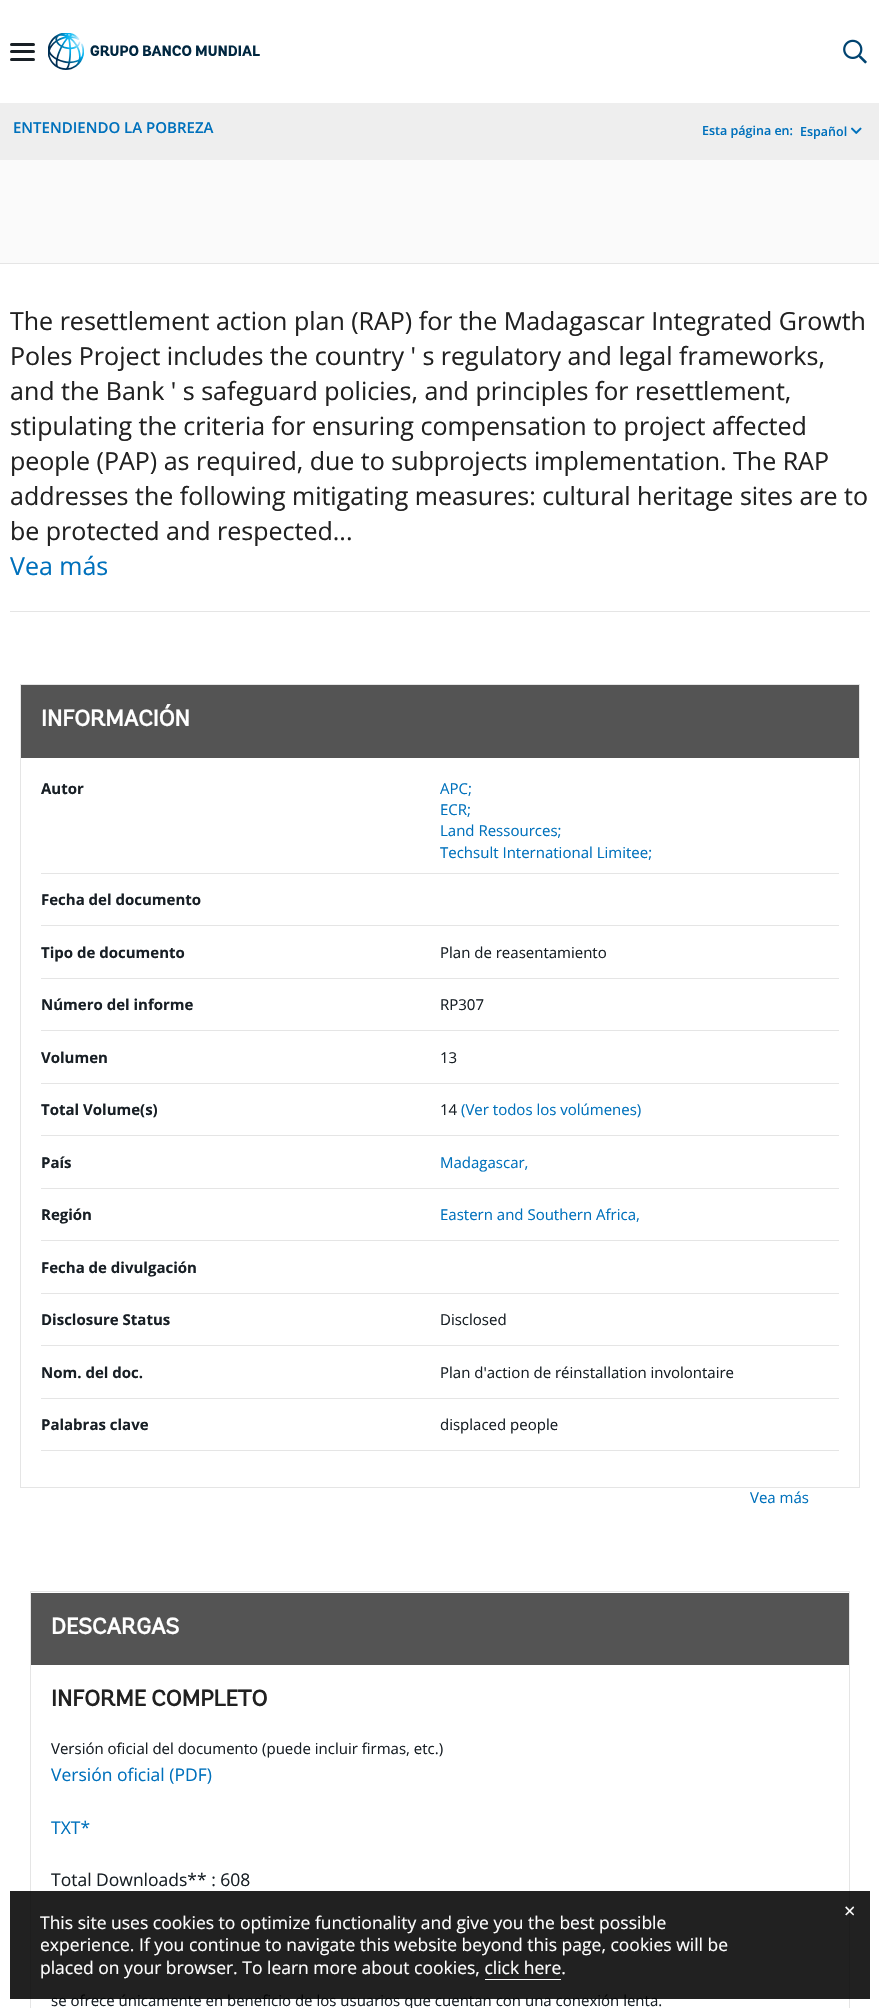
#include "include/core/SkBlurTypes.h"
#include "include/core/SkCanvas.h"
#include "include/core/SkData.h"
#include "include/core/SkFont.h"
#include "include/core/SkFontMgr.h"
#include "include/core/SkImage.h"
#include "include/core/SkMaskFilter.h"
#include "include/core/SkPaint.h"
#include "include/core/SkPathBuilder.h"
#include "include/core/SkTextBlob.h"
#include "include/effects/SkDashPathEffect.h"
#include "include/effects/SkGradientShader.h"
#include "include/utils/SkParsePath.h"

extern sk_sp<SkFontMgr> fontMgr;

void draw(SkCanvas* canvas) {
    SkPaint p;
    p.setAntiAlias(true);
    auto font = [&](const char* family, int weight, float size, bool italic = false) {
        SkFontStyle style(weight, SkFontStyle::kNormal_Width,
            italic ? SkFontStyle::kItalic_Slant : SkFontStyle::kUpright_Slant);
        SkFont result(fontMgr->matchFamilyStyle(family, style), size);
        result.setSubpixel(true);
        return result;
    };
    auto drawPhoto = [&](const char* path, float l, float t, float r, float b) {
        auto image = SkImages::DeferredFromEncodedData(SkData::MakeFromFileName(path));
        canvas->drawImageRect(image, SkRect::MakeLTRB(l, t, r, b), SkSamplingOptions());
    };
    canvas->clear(0xFFFFFFFF);
    p.setColor(0xFF181F25);
    canvas->drawRoundRect(SkRect::MakeLTRB(10, 50, 35, 53), 1.5f, 1.5f, p);
    canvas->drawRoundRect(SkRect::MakeLTRB(10, 43, 35, 46), 1.5f, 1.5f, p);
    canvas->drawRoundRect(SkRect::MakeLTRB(10, 58, 35, 61), 1.5f, 1.5f, p);
    drawPhoto("media/1.png", 48, 33, 260, 70);
    drawPhoto("media/2.png", 843, 39, 867, 64);
    p.setColor(0xFFEEEEEE);
    canvas->drawRect(SkRect::MakeLTRB(0, 103, 879, 160), p);
    auto font1 = font("Open Sans", 600, 15);
    p.setColor(0xFF0071BC);
    canvas->drawString("ENTENDIENDO LA POBREZA", 13, 133, font1, p);
    auto font2 = font("Open Sans", 600, 12.5f);
    canvas->drawString("Esta página en:", 702, 135, font2, p);
    canvas->drawString("Español", 800, 136, font2, p);
    drawPhoto("media/3.png", 851, 127, 862, 134);
    p.setColor(0xFFFAFAFA);
    canvas->drawRect(SkRect::MakeLTRB(0, 160, 879, 263), p);
    p.setColor(0xFFE5E5E5);
    canvas->drawRect(SkRect::MakeLTRB(0, 263, 879, 264), p);
    auto font3 = font("Open Sans", 400, 25);
    p.setColor(0xFF212121);
    {
        const struct { const char* s; float x, y; } items[] = {
            {"The resettlement action plan (RAP) for the Madagascar Integrated Growth", 10, 330},
            {"Poles Project includes the country ' s regulatory and legal frameworks,", 10, 365},
            {"and the Bank ' s safeguard policies, and principles for resettlement,", 10, 400},
            {"stipulating the criteria for ensuring compensation to project affected", 10, 435},
            {"people (PAP) as required, due to subprojects implementation. The RAP", 10, 470},
            {"addresses the following mitigating measures: cultural heritage sites are to", 10, 505},
            {"be protected and respected...", 10, 540},
        };
        for (auto [s, x, y] : items) {
            canvas->drawString(s, x, y, font3, p);
        }
    }
    p.setColor(0xFF0071BC);
    canvas->drawString("Vea más", 10, 575, font3, p);
    p.setColor(0xFFE5E5E5);
    canvas->drawRect(SkRect::MakeLTRB(10, 611, 870, 612), p);
    p.setStyle(SkPaint::kStroke_Style);
    p.setStrokeWidth(1);
    canvas->drawRect(SkRect::MakeLTRB(20.5f, 684.5f, 859.5f, 1487.5f), p);
    p.setStyle(SkPaint::kFill_Style);
    p.setColor(0xFF545454);
    canvas->drawRect(SkRect::MakeLTRB(21, 685, 859, 758), p);
    auto font4 = font("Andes", 700, 22.5f);
    p.setColor(0xFFFFFFFF);
    canvas->drawString("INFORMACIÓN", 41, 726, font4, p);
    p.setColor(0xFFE5E5E5);
    canvas->drawRect(SkRect::MakeLTRB(41, 873, 839, 874), p);
    auto font5 = font("Open Sans", 700, 15);
    p.setColor(0xFF181F25);
    canvas->drawString("Autor", 41, 794, font5, p);
    auto font6 = font("Open Sans", 400, 15);
    p.setColor(0xFF0071BC);
    {
        const struct { const char* s; float x, y; } items[] = {
            {"APC;", 440, 794},
            {"ECR;", 440, 815},
            {"Land Ressources;", 440, 836},
            {"Techsult International Limitee;", 440, 858},
        };
        for (auto [s, x, y] : items) {
            canvas->drawString(s, x, y, font6, p);
        }
    }
    p.setColor(0xFFE5E5E5);
    canvas->drawRect(SkRect::MakeLTRB(41, 925, 839, 926), p);
    p.setColor(0xFF181F25);
    canvas->drawString("Fecha del documento", 41, 905, font5, p);
    p.setColor(0xFFE5E5E5);
    canvas->drawRect(SkRect::MakeLTRB(41, 978, 839, 979), p);
    p.setColor(0xFF181F25);
    canvas->drawString("Tipo de documento", 41, 958, font5, p);
    canvas->drawString("Plan de reasentamiento", 440, 958, font6, p);
    p.setColor(0xFFE5E5E5);
    canvas->drawRect(SkRect::MakeLTRB(41, 1030, 839, 1031), p);
    p.setColor(0xFF181F25);
    canvas->drawString("Número del informe", 41, 1010, font5, p);
    canvas->drawString("RP307", 440, 1010, font6, p);
    p.setColor(0xFFE5E5E5);
    canvas->drawRect(SkRect::MakeLTRB(41, 1083, 839, 1084), p);
    p.setColor(0xFF181F25);
    canvas->drawString("Volumen", 41, 1063, font5, p);
    canvas->drawString("13", 440, 1063, font6, p);
    p.setColor(0xFFE5E5E5);
    canvas->drawRect(SkRect::MakeLTRB(41, 1135, 839, 1136), p);
    p.setColor(0xFF181F25);
    canvas->drawString("Total Volume(s)", 41, 1115, font5, p);
    canvas->drawString("14", 440, 1115, font6, p);
    p.setColor(0xFF0071BC);
    canvas->drawString("(Ver todos los volúmenes)", 461, 1115, font6, p);
    p.setColor(0xFFE5E5E5);
    canvas->drawRect(SkRect::MakeLTRB(41, 1188, 839, 1189), p);
    p.setColor(0xFF181F25);
    canvas->drawString("País", 41, 1168, font5, p);
    p.setColor(0xFF0071BC);
    canvas->drawString("Madagascar,", 440, 1168, font6, p);
    p.setColor(0xFFE5E5E5);
    canvas->drawRect(SkRect::MakeLTRB(41, 1240, 839, 1241), p);
    p.setColor(0xFF181F25);
    canvas->drawString("Región", 41, 1220, font5, p);
    p.setColor(0xFF0071BC);
    canvas->drawString("Eastern and Southern Africa,", 440, 1220, font6, p);
    p.setColor(0xFFE5E5E5);
    canvas->drawRect(SkRect::MakeLTRB(41, 1293, 839, 1294), p);
    p.setColor(0xFF181F25);
    canvas->drawString("Fecha de divulgación", 41, 1273, font5, p);
    p.setColor(0xFFE5E5E5);
    canvas->drawRect(SkRect::MakeLTRB(41, 1345, 839, 1346), p);
    p.setColor(0xFF181F25);
    canvas->drawString("Disclosure Status", 41, 1325, font5, p);
    canvas->drawString("Disclosed", 440, 1325, font6, p);
    p.setColor(0xFFE5E5E5);
    canvas->drawRect(SkRect::MakeLTRB(41, 1398, 839, 1399), p);
    p.setColor(0xFF181F25);
    canvas->drawString("Nom. del doc.", 41, 1378, font5, p);
    canvas->drawString("Plan d'action de réinstallation involontaire", 440, 1378, font6, p);
    p.setColor(0xFFE5E5E5);
    canvas->drawRect(SkRect::MakeLTRB(41, 1450, 839, 1451), p);
    p.setColor(0xFF181F25);
    canvas->drawString("Palabras clave", 41, 1430, font5, p);
    canvas->drawString("displaced people", 440, 1430, font6, p);
    p.setColor(0xFF0071BC);
    canvas->drawString("Vea más", 750, 1503, font6, p);
    p.setStyle(SkPaint::kStroke_Style);
    p.setColor(0xFFE5E5E5);
    canvas->drawRect(SkRect::MakeLTRB(30.5f, 1591.5f, 849.5f, 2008.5f), p);
    p.setStyle(SkPaint::kFill_Style);
    p.setColor(0xFF545454);
    canvas->drawRect(SkRect::MakeLTRB(31, 1593, 849, 1665), p);
    p.setColor(0xFFFFFFFF);
    canvas->drawString("DESCARGAS", 51, 1634, font4, p);
    p.setColor(0xFF212121);
    canvas->drawString("INFORME COMPLETO", 51, 1706, font4, p);
    p.setColor(0xFF181F25);
    canvas->drawString("Versión oficial del documento (puede incluir firmas, etc.)", 51, 1754, font6, p);
    auto font7 = font("Open Sans", 400, 17.5f);
    p.setColor(0xFF0071BC);
    canvas->drawString("Versión oficial (PDF)", 51, 1781, font7, p);
    canvas->drawString("TXT*", 51, 1834, font7, p);
    p.setColor(0xFF181F25);
    canvas->drawString("Total Downloads** : 608", 51, 1886, font7, p);
    canvas->drawString("se ofrece únicamente en beneficio de los usuarios que cuentan con una conexión lenta.", 51, 2006, font6, p);
    p.setColor(0xDE000000);
    canvas->drawRect(SkRect::MakeLTRB(10, 1891, 870, 1999), p);
    auto font8 = font("Open Sans", 400, 20);
    p.setColor(0xFFFFFFFF);
    canvas->drawString("×", 844, 1918, font8, p);
    {
        const struct { const char* s; float x, y; } items[] = {
            {"This site uses cookies to optimize functionality and give you the best possible", 40, 1929},
            {"experience. If you continue to navigate this website beyond this page, cookies will be", 40, 1951},
            {"placed on your browser. To learn more about cookies, click here.", 40, 1974},
        };
        for (auto [s, x, y] : items) {
            canvas->drawString(s, x, y, font7, p);
        }
    }
    canvas->drawRect(SkRect::MakeLTRB(485, 1979, 561, 1980), p);
}
